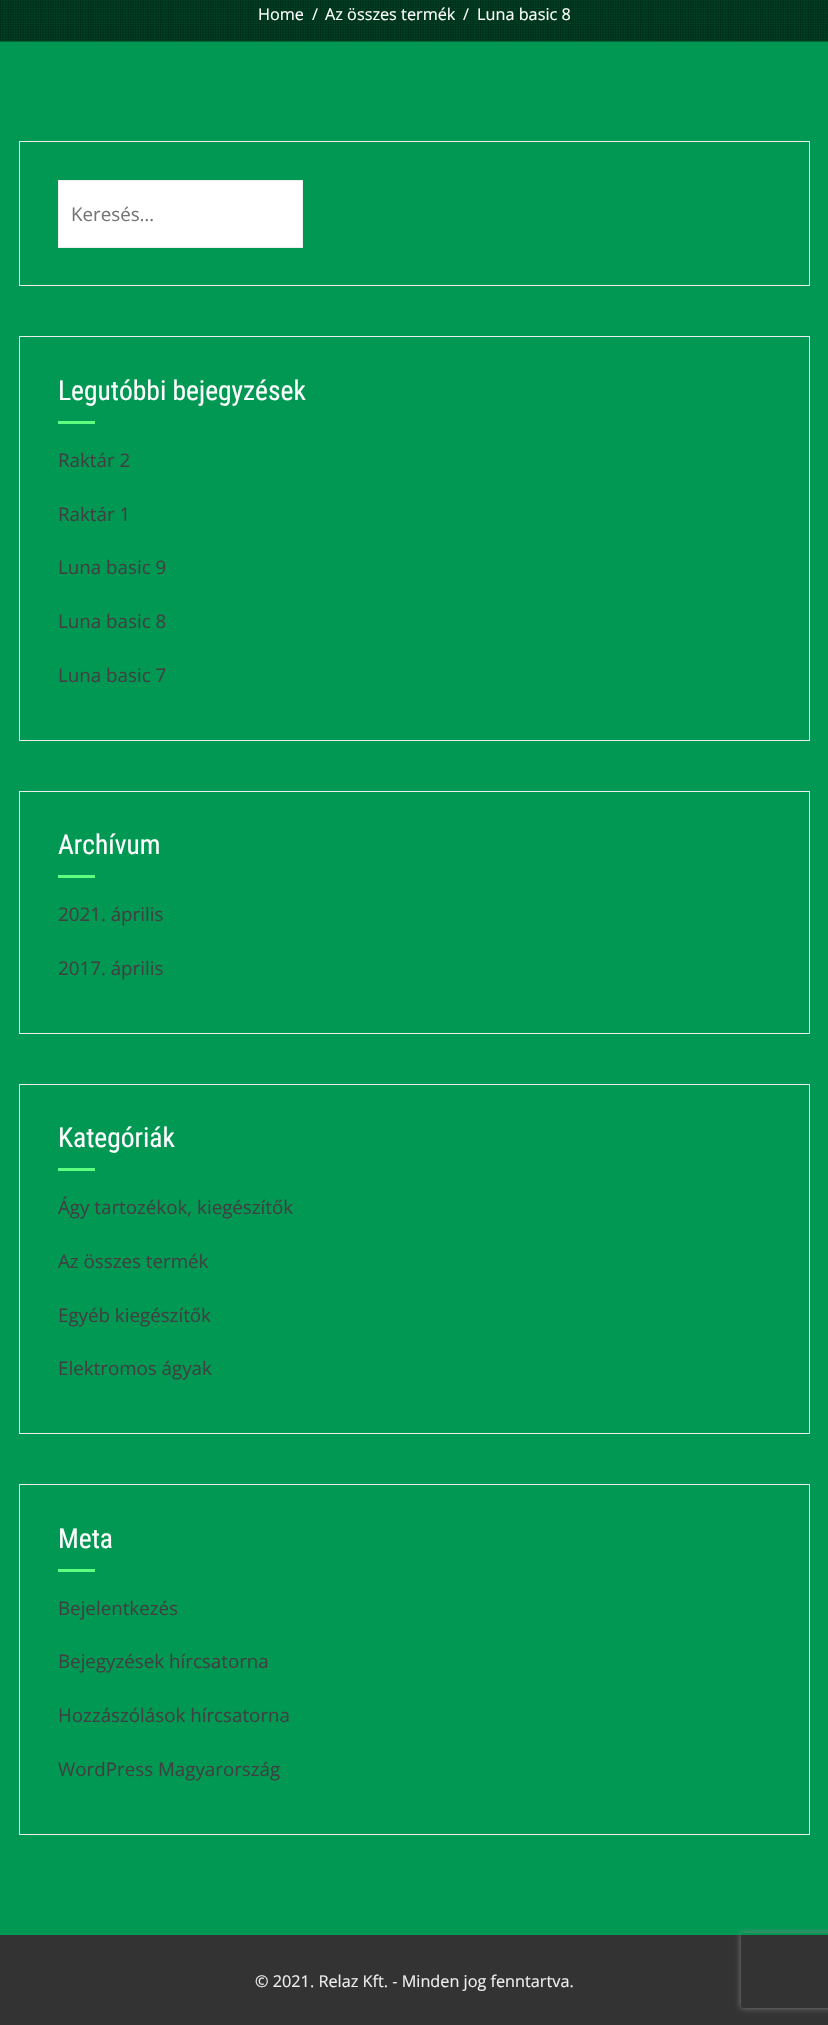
#include "include/core/SkBlurTypes.h"
#include "include/core/SkCanvas.h"
#include "include/core/SkData.h"
#include "include/core/SkFont.h"
#include "include/core/SkFontMgr.h"
#include "include/core/SkImage.h"
#include "include/core/SkMaskFilter.h"
#include "include/core/SkPaint.h"
#include "include/core/SkPathBuilder.h"
#include "include/core/SkTextBlob.h"
#include "include/effects/SkDashPathEffect.h"
#include "include/effects/SkGradientShader.h"
#include "include/utils/SkParsePath.h"

extern sk_sp<SkFontMgr> fontMgr;

void draw(SkCanvas* canvas) {
    SkPaint p;
    p.setAntiAlias(true);
    auto font = [&](const char* family, int weight, float size, bool italic = false) {
        SkFontStyle style(weight, SkFontStyle::kNormal_Width,
            italic ? SkFontStyle::kItalic_Slant : SkFontStyle::kUpright_Slant);
        SkFont result(fontMgr->matchFamilyStyle(family, style), size);
        result.setSubpixel(true);
        return result;
    };
    auto drawPhoto = [&](const char* path, float l, float t, float r, float b) {
        auto image = SkImages::DeferredFromEncodedData(SkData::MakeFromFileName(path));
        canvas->drawImageRect(image, SkRect::MakeLTRB(l, t, r, b), SkSamplingOptions());
    };
    canvas->clear(0xFF009853);
    drawPhoto("media/1.png", 0, 0, 828, 42);
    auto font1 = font("Open Sans", 400, 16.25f);
    p.setColor(0xFFFFFFFF);
    {
        const struct { const char* s; float x, y; } items[] = {
            {"Home", 258, 20},
            {"/", 312, 20},
            {"Az összes termék", 325, 20},
            {"/", 463, 20},
            {"Luna basic 8", 477, 20},
        };
        for (auto [s, x, y] : items) {
            canvas->drawString(s, x, y, font1, p);
        }
    }
    p.setStyle(SkPaint::kStroke_Style);
    p.setStrokeWidth(1);
    p.setColor(0xFFEEEEEE);
    canvas->drawRect(SkRect::MakeLTRB(19.5f, 141.5f, 809.5f, 285.5f), p);
    p.setStyle(SkPaint::kFill_Style);
    p.setColor(0xFFFFFFFF);
    canvas->drawRect(SkRect::MakeLTRB(58.5f, 180.5f, 302.5f, 247.5f), p);
    p.setStyle(SkPaint::kStroke_Style);
    p.setColor(0xFFEEEEEE);
    canvas->drawRect(SkRect::MakeLTRB(58.5f, 180.5f, 302.5f, 247.5f), p);
    auto font2 = font("Open Sans", 400, 18.75f);
    p.setStyle(SkPaint::kFill_Style);
    p.setColor(0xFF757575);
    canvas->drawString("Keresés…", 71, 221, font2, p);
    p.setStyle(SkPaint::kStroke_Style);
    p.setColor(0xFFEEEEEE);
    canvas->drawRect(SkRect::MakeLTRB(19.5f, 336.5f, 809.5f, 740.5f), p);
    auto font3 = font("Roboto Condensed", 400, 27.5f);
    p.setStyle(SkPaint::kFill_Style);
    p.setColor(0xFFFFFFFF);
    canvas->drawString("Legutóbbi bejegyzések", 58, 400, font3, p);
    p.setColor(0xFF61FF7F);
    canvas->drawRect(SkRect::MakeLTRB(58, 421, 95, 424), p);
    p.setColor(0xFF404040);
    {
        const struct { const char* s; float x, y; } items[] = {
            {"Raktár 2", 58, 467},
            {"Raktár 1", 58, 521},
            {"Luna basic 9", 58, 574},
            {"Luna basic 8", 58, 628},
            {"Luna basic 7", 58, 682},
        };
        for (auto [s, x, y] : items) {
            canvas->drawString(s, x, y, font2, p);
        }
    }
    p.setStyle(SkPaint::kStroke_Style);
    p.setColor(0xFFEEEEEE);
    canvas->drawRect(SkRect::MakeLTRB(19.5f, 791.5f, 809.5f, 1033.5f), p);
    p.setStyle(SkPaint::kFill_Style);
    p.setColor(0xFFFFFFFF);
    canvas->drawString("Archívum", 58, 854, font3, p);
    p.setColor(0xFF61FF7F);
    canvas->drawRect(SkRect::MakeLTRB(58, 875, 95, 878), p);
    p.setColor(0xFF404040);
    canvas->drawString("2021. április", 58, 921, font2, p);
    canvas->drawString("2017. április", 58, 975, font2, p);
    p.setStyle(SkPaint::kStroke_Style);
    p.setColor(0xFFEEEEEE);
    canvas->drawRect(SkRect::MakeLTRB(19.5f, 1084.5f, 809.5f, 1433.5f), p);
    p.setStyle(SkPaint::kFill_Style);
    p.setColor(0xFFFFFFFF);
    canvas->drawString("Kategóriák", 58, 1147, font3, p);
    p.setColor(0xFF61FF7F);
    canvas->drawRect(SkRect::MakeLTRB(58, 1168, 95, 1171), p);
    p.setColor(0xFF404040);
    {
        const struct { const char* s; float x, y; } items[] = {
            {"Ágy tartozékok, kiegészítők", 58, 1214},
            {"Az összes termék", 58, 1268},
            {"Egyéb kiegészítők", 58, 1322},
            {"Elektromos ágyak", 58, 1375},
        };
        for (auto [s, x, y] : items) {
            canvas->drawString(s, x, y, font2, p);
        }
    }
    p.setStyle(SkPaint::kStroke_Style);
    p.setColor(0xFFEEEEEE);
    canvas->drawRect(SkRect::MakeLTRB(19.5f, 1484.5f, 809.5f, 1834.5f), p);
    p.setStyle(SkPaint::kFill_Style);
    p.setColor(0xFFFFFFFF);
    canvas->drawString("Meta", 58, 1548, font3, p);
    p.setColor(0xFF61FF7F);
    canvas->drawRect(SkRect::MakeLTRB(58, 1569, 95, 1572), p);
    p.setColor(0xFF404040);
    {
        const struct { const char* s; float x, y; } items[] = {
            {"Bejelentkezés", 58, 1615},
            {"Bejegyzések hírcsatorna", 58, 1668},
            {"Hozzászólások hírcsatorna", 58, 1722},
            {"WordPress Magyarország", 58, 1776},
        };
        for (auto [s, x, y] : items) {
            canvas->drawString(s, x, y, font2, p);
        }
    }
    p.setColor(0xFF333333);
    canvas->drawRect(SkRect::MakeLTRB(0, 1935, 828, 2025), p);
    p.setColor(0xFFEEEEEE);
    canvas->drawString("© 2021. Relaz Kft. - Minden jog fenntartva.", 255, 1987, font1, p);
    canvas->save();
    canvas->clipPath(SkPathBuilder(SkPathFillType::kEvenOdd).moveTo(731, 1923).lineTo(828, 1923).lineTo(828, 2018).lineTo(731, 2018).close().moveTo(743.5f, 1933).lineTo(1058.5f, 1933).cubicTo(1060, 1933, 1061, 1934, 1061, 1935.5f).lineTo(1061, 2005.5f).cubicTo(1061, 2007, 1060, 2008, 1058.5f, 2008).lineTo(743.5f, 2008).cubicTo(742, 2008, 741, 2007, 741, 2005.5f).lineTo(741, 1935.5f).cubicTo(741, 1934, 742, 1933, 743.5f, 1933).close().detach(), true);
    p.setColor(0xFF808080);
    p.setMaskFilter(SkMaskFilter::MakeBlur(kNormal_SkBlurStyle, 3));
    canvas->drawRoundRect(SkRect::MakeLTRB(741, 1933, 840, 2008), 2.5f, 2.5f, p);
    p.setMaskFilter(nullptr);
    canvas->restore();
}
